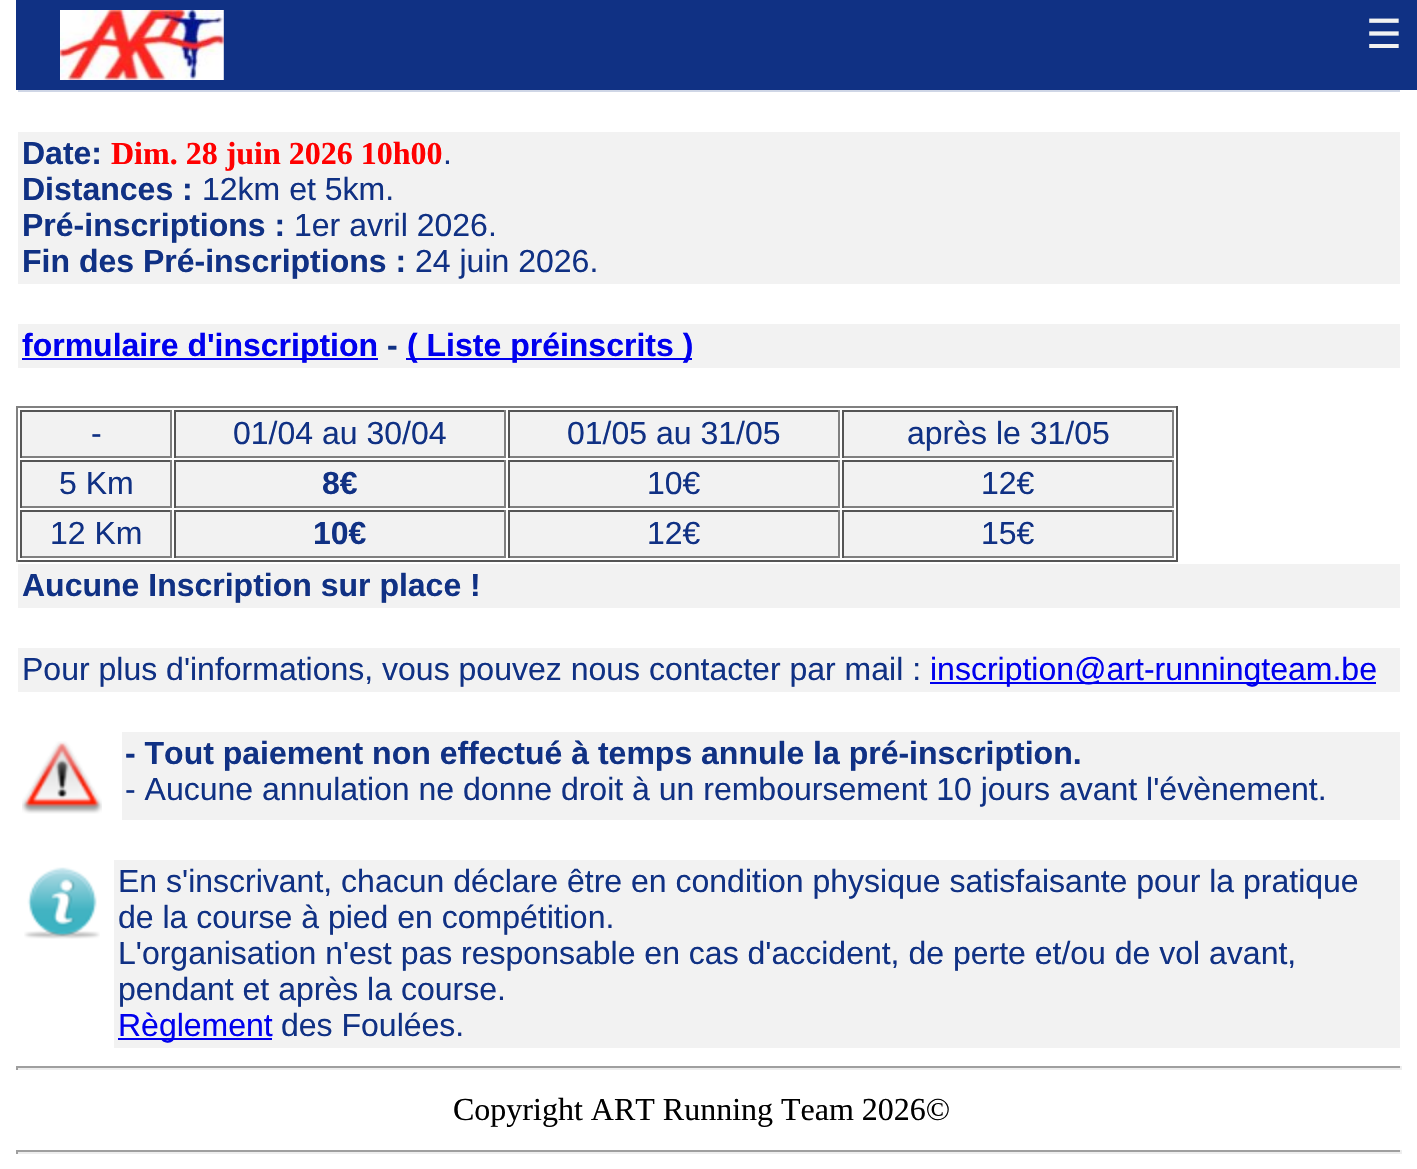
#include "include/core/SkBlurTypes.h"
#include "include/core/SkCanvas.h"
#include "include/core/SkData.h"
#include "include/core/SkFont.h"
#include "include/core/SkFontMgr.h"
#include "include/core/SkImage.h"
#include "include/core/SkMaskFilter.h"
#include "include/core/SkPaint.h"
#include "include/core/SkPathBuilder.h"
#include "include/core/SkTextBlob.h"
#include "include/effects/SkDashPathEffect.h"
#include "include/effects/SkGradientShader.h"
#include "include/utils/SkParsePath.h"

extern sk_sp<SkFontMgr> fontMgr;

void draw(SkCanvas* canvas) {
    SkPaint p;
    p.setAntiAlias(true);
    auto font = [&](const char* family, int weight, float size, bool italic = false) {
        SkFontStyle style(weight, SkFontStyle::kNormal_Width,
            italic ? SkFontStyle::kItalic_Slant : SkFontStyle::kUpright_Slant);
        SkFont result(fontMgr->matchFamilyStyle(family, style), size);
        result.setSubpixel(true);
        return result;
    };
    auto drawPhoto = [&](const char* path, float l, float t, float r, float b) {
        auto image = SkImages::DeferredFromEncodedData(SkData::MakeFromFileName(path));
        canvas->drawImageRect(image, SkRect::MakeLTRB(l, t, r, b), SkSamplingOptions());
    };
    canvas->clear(0xFFFFFFFF);
    p.setColor(0xFF103184);
    canvas->drawRect(SkRect::MakeLTRB(16, 0, 1417, 90), p);
    drawPhoto("media/1.png", 60, 10, 224, 80);
    auto font1 = font("DejaVu Sans", 400, 40);
    p.setColor(0xFFF2F2F2);
    canvas->drawString("☰", 1366, 48, font1, p);
    p.setColor(0xFFCFD6E6);
    canvas->drawRect(SkRect::MakeLTRB(18, 90, 1400, 92), p);
    p.setColor(0xFFF2F2F2);
    canvas->drawRect(SkRect::MakeLTRB(18, 132, 1400, 284), p);
    auto font2 = font("Liberation Sans", 700, 32);
    p.setColor(0xFF103184);
    canvas->drawString("Date:", 22, 164, font2, p);
    auto font3 = font("Liberation Serif", 700, 32);
    p.setColor(0xFFFF0000);
    canvas->drawString("Dim. 28 juin 2026 10h00", 111, 164, font3, p);
    auto font4 = font("Liberation Sans", 400, 32);
    p.setColor(0xFF103184);
    canvas->drawString(".", 443, 164, font4, p);
    canvas->drawString("Distances :", 22, 200, font2, p);
    canvas->drawString("12km et 5km.", 202, 200, font4, p);
    canvas->drawString("Pré-inscriptions :", 22, 236, font2, p);
    canvas->drawString("1er avril 2026.", 294, 236, font4, p);
    canvas->drawString("Fin des Pré-inscriptions :", 22, 272, font2, p);
    canvas->drawString("24 juin 2026.", 415, 272, font4, p);
    p.setColor(0xFFF2F2F2);
    canvas->drawRect(SkRect::MakeLTRB(18, 324, 1400, 368), p);
    p.setColor(0xFF0000EE);
    canvas->drawRect(SkRect::MakeLTRB(22, 358, 378, 360), p);
    canvas->drawString("formulaire d'inscription", 22, 356, font2, p);
    p.setColor(0xFF103184);
    canvas->drawString("-", 387, 356, font2, p);
    p.setColor(0xFF0000EE);
    canvas->drawRect(SkRect::MakeLTRB(406, 358, 692, 360), p);
    canvas->drawString("( Liste préinscrits )", 407, 356, font2, p);
    {
        const struct { float l, t, r, b; SkColor color; } items[] = {
            {16, 406, 1178, 408, 0xFF808080},
            {1176, 406, 1178, 562, 0xFF555555},
            {16, 560, 1178, 562, 0xFF555555},
            {16, 406, 18, 562, 0xFF808080},
            {22, 412, 170, 456, 0xFFF2F2F2},
            {20, 410, 172, 412, 0xFF555555},
            {170, 410, 172, 458, 0xFF808080},
            {20, 456, 172, 458, 0xFF808080},
            {20, 410, 22, 458, 0xFF555555},
        };
        for (auto [l, t, r, b, color] : items) {
            p.setColor(color);
            canvas->drawRect(SkRect::MakeLTRB(l, t, r, b), p);
        }
    }
    p.setColor(0xFF103184);
    canvas->drawString("-", 91, 444, font4, p);
    {
        const struct { float l, t, r, b; SkColor color; } items[] = {
            {176, 412, 504, 456, 0xFFF2F2F2},
            {174, 410, 506, 412, 0xFF555555},
            {504, 410, 506, 458, 0xFF808080},
            {174, 456, 506, 458, 0xFF808080},
            {174, 410, 176, 458, 0xFF555555},
        };
        for (auto [l, t, r, b, color] : items) {
            p.setColor(color);
            canvas->drawRect(SkRect::MakeLTRB(l, t, r, b), p);
        }
    }
    p.setColor(0xFF103184);
    canvas->drawString("01/04 au 30/04", 233, 444, font4, p);
    {
        const struct { float l, t, r, b; SkColor color; } items[] = {
            {510, 412, 838, 456, 0xFFF2F2F2},
            {508, 410, 840, 412, 0xFF555555},
            {838, 410, 840, 458, 0xFF808080},
            {508, 456, 840, 458, 0xFF808080},
            {508, 410, 510, 458, 0xFF555555},
        };
        for (auto [l, t, r, b, color] : items) {
            p.setColor(color);
            canvas->drawRect(SkRect::MakeLTRB(l, t, r, b), p);
        }
    }
    p.setColor(0xFF103184);
    canvas->drawString("01/05 au 31/05", 567, 444, font4, p);
    {
        const struct { float l, t, r, b; SkColor color; } items[] = {
            {844, 412, 1172, 456, 0xFFF2F2F2},
            {842, 410, 1174, 412, 0xFF555555},
            {1172, 410, 1174, 458, 0xFF808080},
            {842, 456, 1174, 458, 0xFF808080},
            {842, 410, 844, 458, 0xFF555555},
        };
        for (auto [l, t, r, b, color] : items) {
            p.setColor(color);
            canvas->drawRect(SkRect::MakeLTRB(l, t, r, b), p);
        }
    }
    p.setColor(0xFF103184);
    canvas->drawString("après le 31/05", 907, 444, font4, p);
    {
        const struct { float l, t, r, b; SkColor color; } items[] = {
            {22, 462, 170, 506, 0xFFF2F2F2},
            {20, 460, 172, 462, 0xFF555555},
            {170, 460, 172, 508, 0xFF808080},
            {20, 506, 172, 508, 0xFF808080},
            {20, 460, 22, 508, 0xFF555555},
        };
        for (auto [l, t, r, b, color] : items) {
            p.setColor(color);
            canvas->drawRect(SkRect::MakeLTRB(l, t, r, b), p);
        }
    }
    p.setColor(0xFF103184);
    canvas->drawString("5 Km", 59, 494, font4, p);
    {
        const struct { float l, t, r, b; SkColor color; } items[] = {
            {176, 462, 504, 506, 0xFFF2F2F2},
            {174, 460, 506, 462, 0xFF555555},
            {504, 460, 506, 508, 0xFF808080},
            {174, 506, 506, 508, 0xFF808080},
            {174, 460, 176, 508, 0xFF555555},
        };
        for (auto [l, t, r, b, color] : items) {
            p.setColor(color);
            canvas->drawRect(SkRect::MakeLTRB(l, t, r, b), p);
        }
    }
    p.setColor(0xFF103184);
    canvas->drawString("8€", 322, 494, font2, p);
    {
        const struct { float l, t, r, b; SkColor color; } items[] = {
            {510, 462, 838, 506, 0xFFF2F2F2},
            {508, 460, 840, 462, 0xFF555555},
            {838, 460, 840, 508, 0xFF808080},
            {508, 506, 840, 508, 0xFF808080},
            {508, 460, 510, 508, 0xFF555555},
        };
        for (auto [l, t, r, b, color] : items) {
            p.setColor(color);
            canvas->drawRect(SkRect::MakeLTRB(l, t, r, b), p);
        }
    }
    p.setColor(0xFF103184);
    canvas->drawString("10€", 647, 494, font4, p);
    {
        const struct { float l, t, r, b; SkColor color; } items[] = {
            {844, 462, 1172, 506, 0xFFF2F2F2},
            {842, 460, 1174, 462, 0xFF555555},
            {1172, 460, 1174, 508, 0xFF808080},
            {842, 506, 1174, 508, 0xFF808080},
            {842, 460, 844, 508, 0xFF555555},
        };
        for (auto [l, t, r, b, color] : items) {
            p.setColor(color);
            canvas->drawRect(SkRect::MakeLTRB(l, t, r, b), p);
        }
    }
    p.setColor(0xFF103184);
    canvas->drawString("12€", 981, 494, font4, p);
    {
        const struct { float l, t, r, b; SkColor color; } items[] = {
            {22, 512, 170, 556, 0xFFF2F2F2},
            {20, 510, 172, 512, 0xFF555555},
            {170, 510, 172, 558, 0xFF808080},
            {20, 556, 172, 558, 0xFF808080},
            {20, 510, 22, 558, 0xFF555555},
        };
        for (auto [l, t, r, b, color] : items) {
            p.setColor(color);
            canvas->drawRect(SkRect::MakeLTRB(l, t, r, b), p);
        }
    }
    p.setColor(0xFF103184);
    canvas->drawString("12 Km", 50, 544, font4, p);
    {
        const struct { float l, t, r, b; SkColor color; } items[] = {
            {176, 512, 504, 556, 0xFFF2F2F2},
            {174, 510, 506, 512, 0xFF555555},
            {504, 510, 506, 558, 0xFF808080},
            {174, 556, 506, 558, 0xFF808080},
            {174, 510, 176, 558, 0xFF555555},
        };
        for (auto [l, t, r, b, color] : items) {
            p.setColor(color);
            canvas->drawRect(SkRect::MakeLTRB(l, t, r, b), p);
        }
    }
    p.setColor(0xFF103184);
    canvas->drawString("10€", 313, 544, font2, p);
    {
        const struct { float l, t, r, b; SkColor color; } items[] = {
            {510, 512, 838, 556, 0xFFF2F2F2},
            {508, 510, 840, 512, 0xFF555555},
            {838, 510, 840, 558, 0xFF808080},
            {508, 556, 840, 558, 0xFF808080},
            {508, 510, 510, 558, 0xFF555555},
        };
        for (auto [l, t, r, b, color] : items) {
            p.setColor(color);
            canvas->drawRect(SkRect::MakeLTRB(l, t, r, b), p);
        }
    }
    p.setColor(0xFF103184);
    canvas->drawString("12€", 647, 544, font4, p);
    {
        const struct { float l, t, r, b; SkColor color; } items[] = {
            {844, 512, 1172, 556, 0xFFF2F2F2},
            {842, 510, 1174, 512, 0xFF555555},
            {1172, 510, 1174, 558, 0xFF808080},
            {842, 556, 1174, 558, 0xFF808080},
            {842, 510, 844, 558, 0xFF555555},
        };
        for (auto [l, t, r, b, color] : items) {
            p.setColor(color);
            canvas->drawRect(SkRect::MakeLTRB(l, t, r, b), p);
        }
    }
    p.setColor(0xFF103184);
    canvas->drawString("15€", 981, 544, font4, p);
    p.setColor(0xFFF2F2F2);
    canvas->drawRect(SkRect::MakeLTRB(18, 564, 1400, 608), p);
    p.setColor(0xFF103184);
    canvas->drawString("Aucune Inscription sur place !", 22, 596, font2, p);
    p.setColor(0xFFF2F2F2);
    canvas->drawRect(SkRect::MakeLTRB(18, 648, 1400, 692), p);
    p.setColor(0xFF103184);
    canvas->drawString("Pour plus d'informations, vous pouvez nous contacter par mail :", 22, 680, font4, p);
    p.setColor(0xFF0000EE);
    canvas->drawRect(SkRect::MakeLTRB(930, 682, 1376, 684), p);
    canvas->drawString("inscription@art-runningteam.be", 930, 680, font4, p);
    drawPhoto("media/2.png", 22, 741, 102, 814);
    p.setColor(0xFFF2F2F2);
    canvas->drawRect(SkRect::MakeLTRB(122, 732, 1400, 820), p);
    p.setColor(0xFF103184);
    canvas->drawString("- Tout paiement non effectué à temps annule la pré-inscription.", 125, 764, font2, p);
    canvas->drawString("- Aucune annulation ne donne droit à un remboursement 10 jours avant l'évènement.", 125, 800, font4, p);
    drawPhoto("media/3.png", 24, 867, 100, 939);
    p.setColor(0xFFF2F2F2);
    canvas->drawRect(SkRect::MakeLTRB(114, 860, 1400, 1048), p);
    p.setColor(0xFF103184);
    {
        const struct { const char* s; float x, y; } items[] = {
            {"En s'inscrivant, chacun déclare être en condition physique satisfaisante pour la pratique", 118, 892},
            {"de la course à pied en compétition.", 118, 928},
            {"L'organisation n'est pas responsable en cas d'accident, de perte et/ou de vol avant,", 118, 964},
            {"pendant et après la course.", 118, 1000},
        };
        for (auto [s, x, y] : items) {
            canvas->drawString(s, x, y, font4, p);
        }
    }
    p.setColor(0xFF0000EE);
    canvas->drawRect(SkRect::MakeLTRB(118, 1038, 272, 1040), p);
    canvas->drawString("Règlement", 118, 1036, font4, p);
    p.setColor(0xFF103184);
    canvas->drawString("des Foulées.", 281, 1036, font4, p);
    {
        const struct { float l, t, r, b; SkColor color; } items[] = {
            {16, 1066, 1402, 1068, 0xFF9F9F9F},
            {1400, 1066, 1402, 1070, 0xFFEEEEEE},
            {16, 1068, 1402, 1070, 0xFFEEEEEE},
            {16, 1066, 18, 1070, 0xFF9F9F9F},
        };
        for (auto [l, t, r, b, color] : items) {
            p.setColor(color);
            canvas->drawRect(SkRect::MakeLTRB(l, t, r, b), p);
        }
    }
    auto font5 = font("Liberation Serif", 400, 32);
    p.setColor(0xFF000000);
    canvas->drawString("Copyright ART Running Team 2026©", 453, 1120, font5, p);
    {
        const struct { float l, t, r, b; SkColor color; } items[] = {
            {16, 1150, 1402, 1152, 0xFF9F9F9F},
            {1400, 1150, 1402, 1154, 0xFFEEEEEE},
            {16, 1152, 1402, 1154, 0xFFEEEEEE},
            {16, 1150, 18, 1154, 0xFF9F9F9F},
        };
        for (auto [l, t, r, b, color] : items) {
            p.setColor(color);
            canvas->drawRect(SkRect::MakeLTRB(l, t, r, b), p);
        }
    }
}
